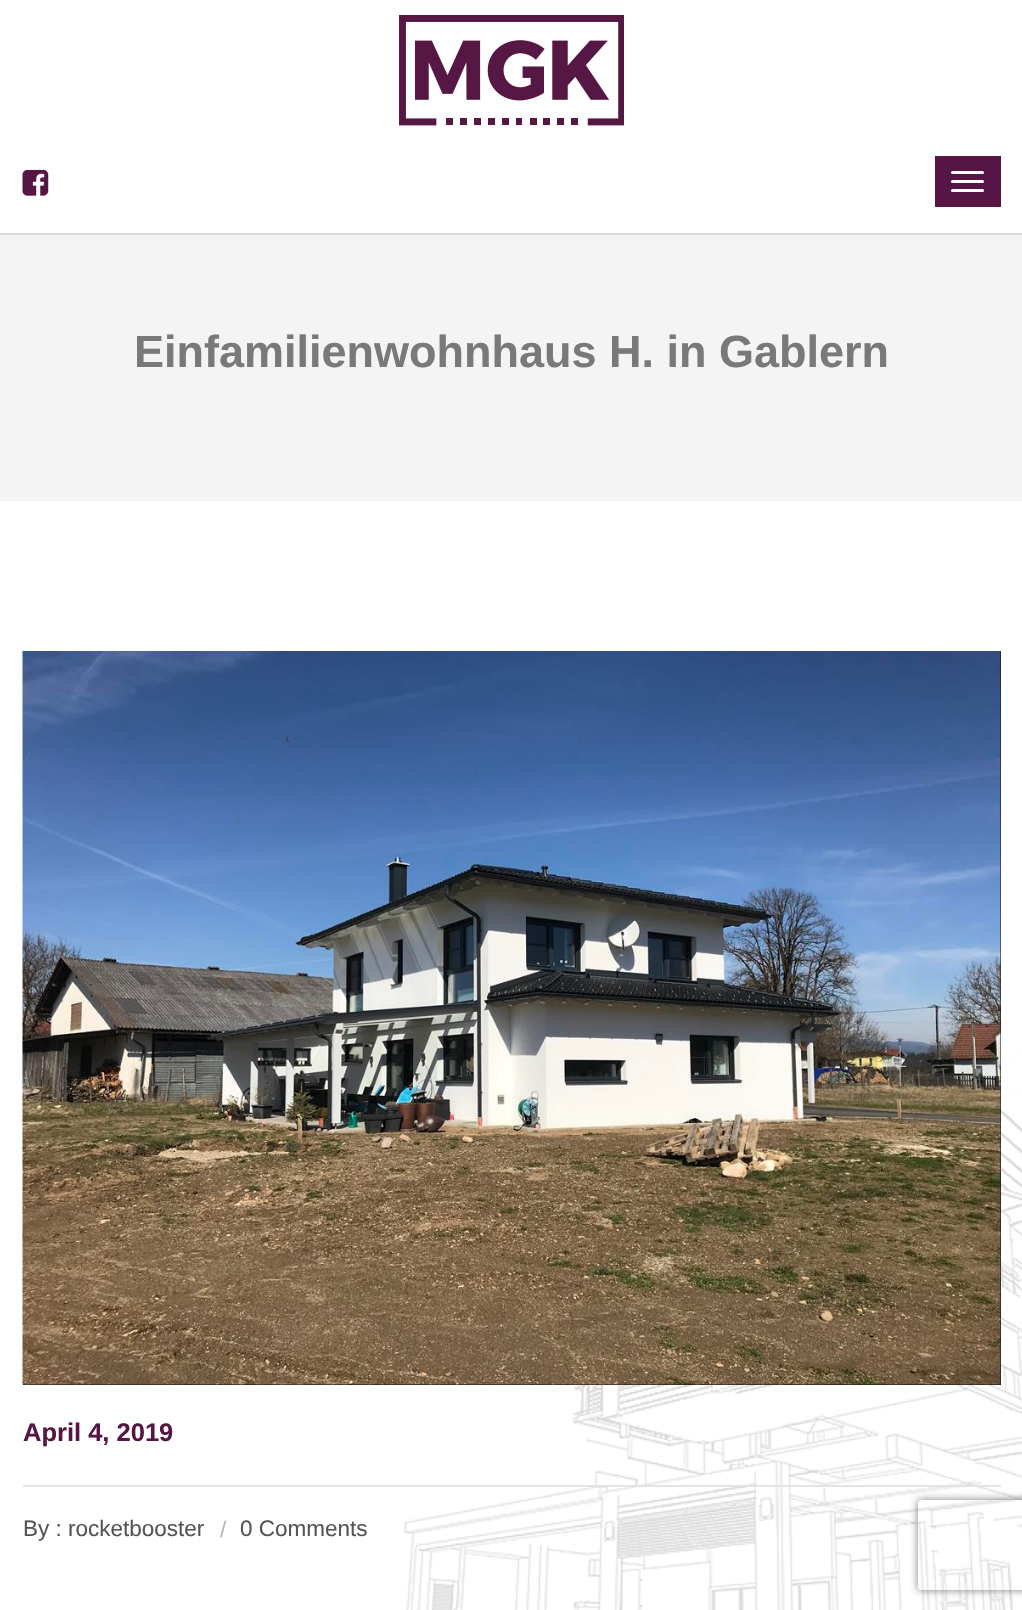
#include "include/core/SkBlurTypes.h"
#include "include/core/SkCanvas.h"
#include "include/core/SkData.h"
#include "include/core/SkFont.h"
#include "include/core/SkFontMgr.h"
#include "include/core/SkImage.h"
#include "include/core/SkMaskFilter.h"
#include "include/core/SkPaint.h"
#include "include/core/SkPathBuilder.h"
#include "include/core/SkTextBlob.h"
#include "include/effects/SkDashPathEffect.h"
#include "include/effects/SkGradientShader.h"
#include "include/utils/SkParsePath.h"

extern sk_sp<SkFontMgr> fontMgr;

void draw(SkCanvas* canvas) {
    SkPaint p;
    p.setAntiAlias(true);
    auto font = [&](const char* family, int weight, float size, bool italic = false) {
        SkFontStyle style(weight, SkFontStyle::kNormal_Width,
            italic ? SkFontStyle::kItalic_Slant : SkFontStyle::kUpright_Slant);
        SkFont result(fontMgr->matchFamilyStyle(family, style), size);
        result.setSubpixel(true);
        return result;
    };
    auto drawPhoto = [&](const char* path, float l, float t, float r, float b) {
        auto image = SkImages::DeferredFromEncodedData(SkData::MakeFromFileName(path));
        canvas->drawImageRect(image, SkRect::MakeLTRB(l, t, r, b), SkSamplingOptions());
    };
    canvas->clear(0xFFFFFFFF);
    drawPhoto("media/1.png", 403, 1046, 1022, 1610);
    p.setColor(0xFFD9D9D9);
    canvas->drawRect(SkRect::MakeLTRB(0, 233, 1022, 235), p);
    drawPhoto("media/2.png", 399, 15, 624, 126);
    drawPhoto("media/3.png", 22, 169, 49, 196);
    p.setColor(0xFF561544);
    canvas->drawRect(SkRect::MakeLTRB(935, 156, 1001, 207), p);
    p.setColor(0xFFFFFFFF);
    canvas->drawRoundRect(SkRect::MakeLTRB(951, 171, 984, 174), 1.5f, 1.5f, p);
    canvas->drawRoundRect(SkRect::MakeLTRB(951, 180, 984, 183), 1.5f, 1.5f, p);
    canvas->drawRoundRect(SkRect::MakeLTRB(951, 189, 984, 192), 1.5f, 1.5f, p);
    p.setColor(0xFFF4F4F4);
    canvas->drawRect(SkRect::MakeLTRB(0, 235, 1022, 501), p);
    auto font1 = font("Liberation Sans", 700, 45);
    p.setColor(0xFF797979);
    canvas->drawString("Einfamilienwohnhaus H. in Gablern", 134, 367, font1, p);
    p.setColor(0xFF0B0B0B);
    canvas->drawRect(SkRect::MakeLTRB(23, 651, 1001, 1385), p);
    drawPhoto("media/4.png", 22, 651, 1001, 1385);
    p.setColor(0xFFE4E4E4);
    canvas->drawRect(SkRect::MakeLTRB(23, 1485, 1001, 1487), p);
    auto font2 = font("Liberation Sans", 700, 25.5f);
    p.setColor(0xFF561544);
    canvas->drawString("April 4, 2019", 23, 1441, font2, p);
    auto font3 = font("Liberation Sans", 400, 22.5f);
    p.setColor(0xFF555555);
    canvas->drawString("By : rocketbooster", 23, 1536, font3, p);
    p.setColor(0xFFB8B8B8);
    canvas->drawString("/", 220, 1537, font3, p);
    p.setColor(0xFF555555);
    canvas->drawString("0 Comments", 240, 1536, font3, p);
    canvas->save();
    canvas->clipPath(SkPathBuilder(SkPathFillType::kEvenOdd).moveTo(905, 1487).lineTo(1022, 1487).lineTo(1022, 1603).lineTo(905, 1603).close().moveTo(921, 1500).lineTo(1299, 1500).cubicTo(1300.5f, 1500, 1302, 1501.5f, 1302, 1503).lineTo(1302, 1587).cubicTo(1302, 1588.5f, 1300.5f, 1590, 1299, 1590).lineTo(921, 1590).cubicTo(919.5f, 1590, 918, 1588.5f, 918, 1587).lineTo(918, 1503).cubicTo(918, 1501.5f, 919.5f, 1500, 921, 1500).close().detach(), true);
    p.setColor(0xFF808080);
    p.setMaskFilter(SkMaskFilter::MakeBlur(kNormal_SkBlurStyle, 4));
    canvas->drawRoundRect(SkRect::MakeLTRB(918, 1500, 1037, 1590), 3, 3, p);
    p.setMaskFilter(nullptr);
    canvas->restore();
}
